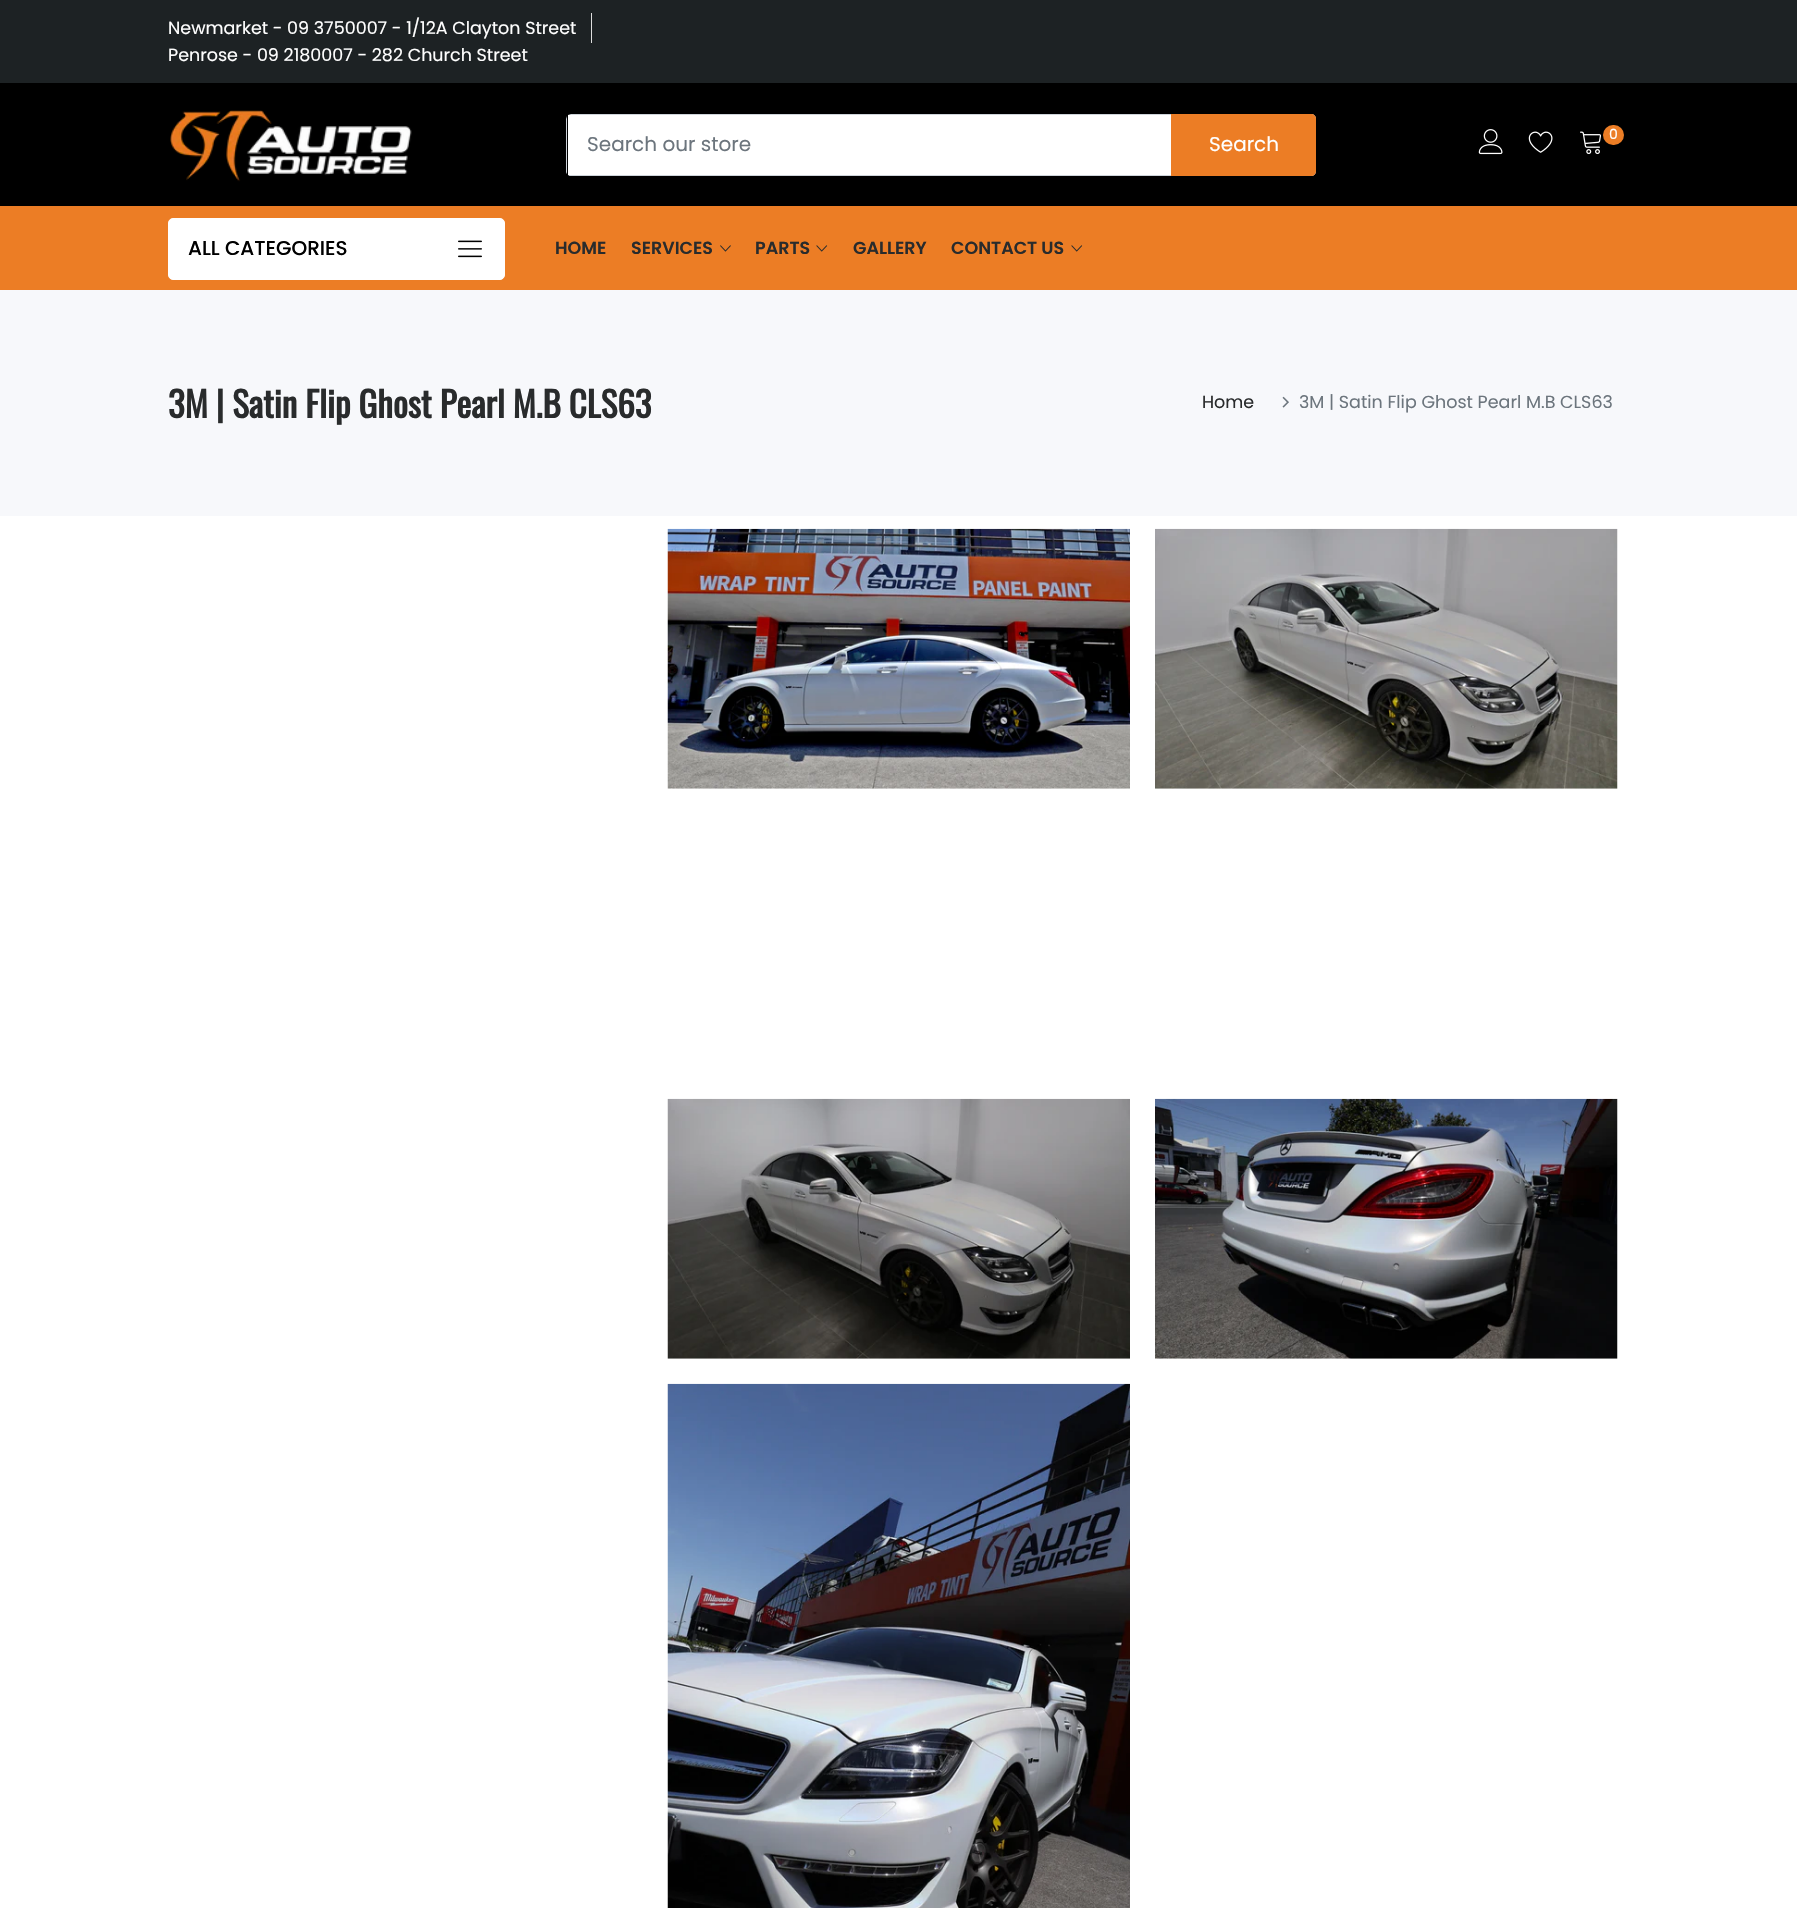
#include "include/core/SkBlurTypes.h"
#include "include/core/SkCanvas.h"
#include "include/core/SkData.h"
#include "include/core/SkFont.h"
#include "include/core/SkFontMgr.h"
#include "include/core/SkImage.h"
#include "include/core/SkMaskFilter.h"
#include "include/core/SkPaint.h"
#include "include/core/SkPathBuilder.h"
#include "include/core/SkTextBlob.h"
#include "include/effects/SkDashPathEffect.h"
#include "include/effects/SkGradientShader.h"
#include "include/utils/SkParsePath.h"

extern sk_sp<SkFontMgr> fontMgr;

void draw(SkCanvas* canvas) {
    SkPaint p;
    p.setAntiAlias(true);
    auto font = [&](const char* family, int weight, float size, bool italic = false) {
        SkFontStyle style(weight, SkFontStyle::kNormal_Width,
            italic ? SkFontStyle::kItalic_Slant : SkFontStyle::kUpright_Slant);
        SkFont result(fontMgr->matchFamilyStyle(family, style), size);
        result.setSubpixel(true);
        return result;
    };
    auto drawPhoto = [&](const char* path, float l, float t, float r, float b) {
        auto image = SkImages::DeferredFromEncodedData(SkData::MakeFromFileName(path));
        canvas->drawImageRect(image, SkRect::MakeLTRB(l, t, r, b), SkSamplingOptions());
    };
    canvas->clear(0xFFFFFFFF);
    p.setColor(0xFF1D2224);
    canvas->drawRect(SkRect::MakeLTRB(0, 0, 1797, 83), p);
    p.setColor(0xFFDDDDDD);
    canvas->drawRect(SkRect::MakeLTRB(591, 13, 592, 43), p);
    auto font1 = font("Poppins", 400, 17.5f);
    p.setColor(0xFFFFFFFF);
    canvas->drawString("Newmarket - 09 3750007 - 1/12A Clayton Street", 168, 34, font1, p);
    canvas->drawString("Penrose - 09 2180007 - 282 Church Street", 168, 61, font1, p);
    p.setColor(0xFF000000);
    canvas->drawRect(SkRect::MakeLTRB(0, 83, 1797, 206), p);
    drawPhoto("media/1.png", 170, 110, 412, 182);
    drawPhoto("media/2.png", 1478, 129, 1503, 155);
    drawPhoto("media/3.png", 1528, 131, 1553, 153);
    drawPhoto("media/4.png", 1580, 131, 1601, 154);
    p.setColor(0xFFEC7D25);
    canvas->drawRoundRect(SkRect::MakeLTRB(1603, 125, 1624, 145), 10, 10, p);
    auto font2 = font("Poppins", 400, 14);
    p.setColor(0xFFFFFFFF);
    canvas->drawString("0", 1609, 139, font2, p);
    canvas->drawPath(SkPathBuilder().moveTo(568, 115).lineTo(1311, 115).cubicTo(1313, 115, 1315, 117, 1315, 119).lineTo(1315, 171).cubicTo(1315, 173, 1313, 175, 1311, 175).lineTo(568, 175).close().detach(), p);
    p.setColor(0xFFCED4DA);
    canvas->drawPath(SkPathBuilder(SkPathFillType::kEvenOdd).moveTo(566, 119).lineTo(566, 171).cubicTo(566, 172, 566, 173, 567, 174).lineTo(567, 116).close().moveTo(571, 114).lineTo(568, 115).lineTo(1311, 115).cubicTo(1313, 115, 1315, 117, 1315, 119).lineTo(1315, 171).cubicTo(1315, 173, 1313, 175, 1311, 175).lineTo(568, 175).cubicTo(569, 176, 570, 176, 571, 176).lineTo(1311, 176).cubicTo(1314, 176, 1316, 174, 1316, 171).lineTo(1316, 119).cubicTo(1316, 116, 1314, 114, 1311, 114).close().detach(), p);
    auto font3 = font("Poppins", 400, 20);
    p.setColor(0xFF6C757D);
    canvas->drawString("Search our store", 587, 151, font3, p);
    p.setColor(0xFFEC7D25);
    canvas->drawPath(SkPathBuilder().moveTo(1171, 114).lineTo(1311, 114).cubicTo(1314, 114, 1316, 116, 1316, 119).lineTo(1316, 171).cubicTo(1316, 174, 1314, 176, 1311, 176).lineTo(1171, 176).close().detach(), p);
    p.setColor(0xFFFFFFFF);
    canvas->drawString("Search", 1209, 151, font3, p);
    p.setColor(0xFFEC7D25);
    canvas->drawRect(SkRect::MakeLTRB(0, 206, 1797, 290), p);
    p.setColor(0xFFFFFFFF);
    canvas->drawRoundRect(SkRect::MakeLTRB(168.5f, 218.5f, 504.5f, 279.5f), 4.5f, 4.5f, p);
    p.setStyle(SkPaint::kStroke_Style);
    p.setStrokeWidth(1);
    canvas->drawRoundRect(SkRect::MakeLTRB(168.5f, 218.5f, 504.5f, 279.5f), 4.5f, 4.5f, p);
    auto font4 = font("Poppins", 500, 20);
    p.setStyle(SkPaint::kFill_Style);
    p.setColor(0xFF000000);
    canvas->drawString("ALL CATEGORIES", 188, 255, font4, p);
    drawPhoto("media/5.png", 458, 240, 482, 258);
    auto font5 = font("Poppins", 600, 17.5f);
    p.setColor(0xFF292B2C);
    canvas->drawString("HOME", 555, 254, font5, p);
    canvas->drawString("SERVICES", 631, 254, font5, p);
    drawPhoto("media/6.png", 720, 245, 731, 252);
    canvas->drawString("PARTS", 755, 254, font5, p);
    drawPhoto("media/7.png", 816, 245, 828, 252);
    canvas->drawString("GALLERY", 853, 254, font5, p);
    canvas->drawString("CONTACT US", 951, 254, font5, p);
    drawPhoto("media/7.png", 1071, 245, 1083, 252);
    p.setColor(0xFFF7F8FB);
    canvas->drawRect(SkRect::MakeLTRB(0, 290, 1797, 516), p);
    auto font6 = font("Oswald", 700, 35);
    p.setColor(0xFF292B2C);
    canvas->drawString("3M | Satin Flip Ghost Pearl M.B CLS63", 168, 418, font6, p);
    canvas->drawString("Home", 1202, 408, font1, p);
    drawPhoto("media/8.png", 1282, 396, 1289, 408);
    p.setColor(0xFF6C757D);
    canvas->drawString("3M | Satin Flip Ghost Pearl M.B CLS63", 1299, 408, font1, p);
    drawPhoto("media/9.png", 667, 528, 1130, 789);
    drawPhoto("media/10.png", 1155, 528, 1618, 789);
    drawPhoto("media/11.png", 667, 1098, 1130, 1359);
    drawPhoto("media/12.png", 1155, 1098, 1618, 1359);
    drawPhoto("media/13.png", 667, 1383, 1130, 1908);
}
